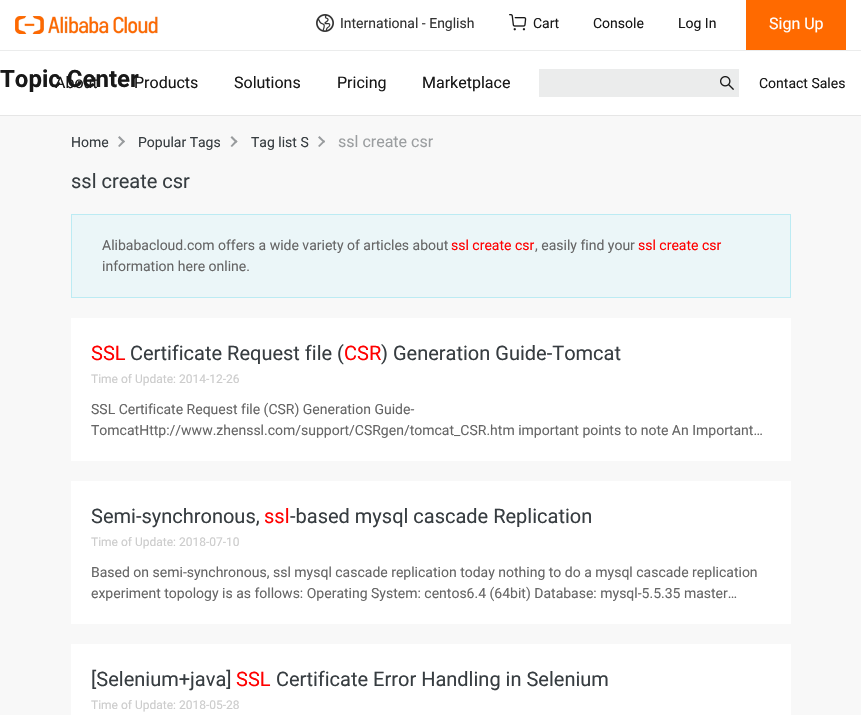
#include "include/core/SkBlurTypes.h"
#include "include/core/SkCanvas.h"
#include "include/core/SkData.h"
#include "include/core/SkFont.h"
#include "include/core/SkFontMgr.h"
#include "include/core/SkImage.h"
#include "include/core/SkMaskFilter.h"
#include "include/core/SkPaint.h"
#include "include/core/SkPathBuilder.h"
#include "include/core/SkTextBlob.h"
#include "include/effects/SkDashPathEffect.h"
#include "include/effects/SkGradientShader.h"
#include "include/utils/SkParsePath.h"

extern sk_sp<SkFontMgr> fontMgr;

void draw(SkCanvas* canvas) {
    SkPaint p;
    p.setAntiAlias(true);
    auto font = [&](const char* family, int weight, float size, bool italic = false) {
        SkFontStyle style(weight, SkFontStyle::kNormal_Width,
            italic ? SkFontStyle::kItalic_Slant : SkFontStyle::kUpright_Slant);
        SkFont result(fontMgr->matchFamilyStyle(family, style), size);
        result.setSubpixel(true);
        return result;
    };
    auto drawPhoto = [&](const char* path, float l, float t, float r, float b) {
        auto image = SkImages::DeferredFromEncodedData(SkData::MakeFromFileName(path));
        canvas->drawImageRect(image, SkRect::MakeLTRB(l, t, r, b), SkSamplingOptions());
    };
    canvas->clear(0xFFF8F8F8);
    p.setColor(0xFFE6E6E6);
    canvas->drawRect(SkRect::MakeLTRB(0, 115, 861, 116), p);
    p.setColor(0xFFFFFFFF);
    canvas->drawRect(SkRect::MakeLTRB(0, 0, 861, 115), p);
    drawPhoto("media/1.png", 15, 16, 158, 34);
    drawPhoto("media/2.png", 316, 14, 334, 32);
    auto font1 = font("Roboto", 400, 14);
    p.setColor(0xFF333333);
    canvas->drawString("International - English", 340, 28, font1, p);
    drawPhoto("media/3.png", 509, 14, 527, 31);
    p.setColor(0xFF181818);
    {
        const struct { const char* s; float x, y; } items[] = {
            {"Cart", 533, 28},
            {"Console", 593, 28},
            {"Log In", 678, 28},
        };
        for (auto [s, x, y] : items) {
            canvas->drawString(s, x, y, font1, p);
        }
    }
    p.setColor(0xFFFF6A00);
    canvas->drawRect(SkRect::MakeLTRB(746, 0, 846, 50), p);
    auto font2 = font("Roboto", 400, 16);
    p.setColor(0xFFFFFFFF);
    canvas->drawString("Sign Up", 769, 29, font2, p);
    p.setColor(0xFFEBECEC);
    canvas->drawRect(SkRect::MakeLTRB(0, 50, 861, 51), p);
    p.setColor(0xFF181818);
    canvas->drawString("About", 55, 88, font2, p);
    canvas->drawString("Products", 134, 88, font2, p);
    auto font3 = font("Roboto", 700, 24);
    canvas->drawString("Topic Center", 0, 87, font3, p);
    {
        const struct { const char* s; float x, y; } items[] = {
            {"Solutions", 234, 88},
            {"Pricing", 337, 88},
            {"Marketplace", 422, 88},
        };
        for (auto [s, x, y] : items) {
            canvas->drawString(s, x, y, font2, p);
        }
    }
    p.setColor(0xFFEBECEC);
    canvas->drawRect(SkRect::MakeLTRB(539, 69, 739, 97), p);
    drawPhoto("media/4.png", 720, 76, 734, 90);
    p.setColor(0xFF181818);
    canvas->drawString("Contact Sales", 759, 88, font1, p);
    p.setColor(0xFF373D41);
    canvas->drawString("Home", 71, 147, font1, p);
    p.setColor(0xFF989B9D);
    canvas->drawPath(SkPathBuilder().moveTo(125, 141.5f).lineTo(119.5f, 147).lineTo(118, 146).lineTo(123.5f, 140).close().detach(), p);
    canvas->drawPath(SkPathBuilder().moveTo(125, 141.5f).lineTo(123.5f, 143).lineTo(118, 137.5f).lineTo(119.5f, 136).close().detach(), p);
    p.setColor(0xFF373D41);
    canvas->drawString("Popular Tags", 138, 147, font1, p);
    p.setColor(0xFF989B9D);
    canvas->drawPath(SkPathBuilder().moveTo(237.5f, 141.5f).lineTo(232, 147).lineTo(230.5f, 146).lineTo(236, 140).close().detach(), p);
    canvas->drawPath(SkPathBuilder().moveTo(237.5f, 141.5f).lineTo(236, 143).lineTo(230.5f, 137.5f).lineTo(232, 136).close().detach(), p);
    p.setColor(0xFF373D41);
    canvas->drawString("Tag list S", 251, 147, font1, p);
    p.setColor(0xFF989B9D);
    canvas->drawPath(SkPathBuilder().moveTo(325, 141.5f).lineTo(319.5f, 147).lineTo(318, 146).lineTo(324, 140).close().detach(), p);
    canvas->drawPath(SkPathBuilder().moveTo(325, 141.5f).lineTo(324, 143).lineTo(318, 137.5f).lineTo(319.5f, 136).close().detach(), p);
    p.setColor(0xFF9B9EA0);
    canvas->drawString("ssl create csr", 338, 147, font2, p);
    auto font4 = font("Roboto", 400, 20);
    p.setColor(0xFF373D41);
    canvas->drawString("ssl create csr", 71, 188, font4, p);
    p.setColor(0xFFEBF6F8);
    canvas->drawRect(SkRect::MakeLTRB(71.5f, 214.5f, 790.5f, 297.5f), p);
    p.setStyle(SkPaint::kStroke_Style);
    p.setStrokeWidth(1);
    p.setColor(0xFFBCEBF3);
    canvas->drawRect(SkRect::MakeLTRB(71.5f, 214.5f, 790.5f, 297.5f), p);
    p.setStyle(SkPaint::kFill_Style);
    p.setColor(0xFF666666);
    canvas->drawString("Alibabacloud.com offers a wide variety of articles about", 102, 250, font1, p);
    p.setColor(0xFFFF0000);
    canvas->drawString("ssl create csr", 451, 250, font1, p);
    p.setColor(0xFF666666);
    canvas->drawString(", easily find your", 535, 250, font1, p);
    p.setColor(0xFFFF0000);
    canvas->drawString("ssl create csr", 638, 250, font1, p);
    p.setColor(0xFF666666);
    canvas->drawString("information here online.", 102, 271, font1, p);
    p.setColor(0xFFFFFFFF);
    canvas->drawRect(SkRect::MakeLTRB(71, 318, 791, 461), p);
    p.setColor(0xFFFF0000);
    canvas->drawString("SSL", 91, 360, font4, p);
    p.setColor(0xFF373D41);
    canvas->drawString("Certificate Request file (", 130, 360, font4, p);
    p.setColor(0xFFFF0000);
    canvas->drawString("CSR", 344, 360, font4, p);
    p.setColor(0xFF373D41);
    canvas->drawString(") Generation Guide-Tomcat", 381, 360, font4, p);
    auto font5 = font("Roboto", 400, 12);
    p.setColor(0xFFCCCCCC);
    canvas->drawString("Time of Update: 2014-12-26", 91, 383, font5, p);
    p.setColor(0xFF666666);
    canvas->drawString("SSL Certificate Request file (CSR) Generation Guide-", 91, 414, font1, p);
    canvas->drawString("TomcatHttp://www.zhenssl.com/support/CSRgen/tomcat_CSR.htm important points to note An Important…", 91, 435, font1, p);
    p.setColor(0xFFFFFFFF);
    canvas->drawRect(SkRect::MakeLTRB(71, 481, 791, 624), p);
    p.setColor(0xFF373D41);
    canvas->drawString("Semi-synchronous,", 91, 523, font4, p);
    p.setColor(0xFFFF0000);
    canvas->drawString("ssl", 264, 523, font4, p);
    p.setColor(0xFF373D41);
    canvas->drawString("-based mysql cascade Replication", 290, 523, font4, p);
    p.setColor(0xFFCCCCCC);
    canvas->drawString("Time of Update: 2018-07-10", 91, 546, font5, p);
    p.setColor(0xFF666666);
    canvas->drawString("Based on semi-synchronous, ssl mysql cascade replication today nothing to do a mysql cascade replication", 91, 577, font1, p);
    canvas->drawString("experiment topology is as follows: Operating System: centos6.4 (64bit) Database: mysql-5.5.35 master…", 91, 598, font1, p);
    p.setColor(0xFFFFFFFF);
    canvas->drawRect(SkRect::MakeLTRB(71, 644, 791, 715), p);
    p.setColor(0xFF373D41);
    canvas->drawString("[Selenium+java]", 91, 686, font4, p);
    p.setColor(0xFFFF0000);
    canvas->drawString("SSL", 236, 686, font4, p);
    p.setColor(0xFF373D41);
    canvas->drawString("Certificate Error Handling in Selenium", 276, 686, font4, p);
    p.setColor(0xFFCCCCCC);
    canvas->drawString("Time of Update: 2018-05-28", 91, 709, font5, p);
}
